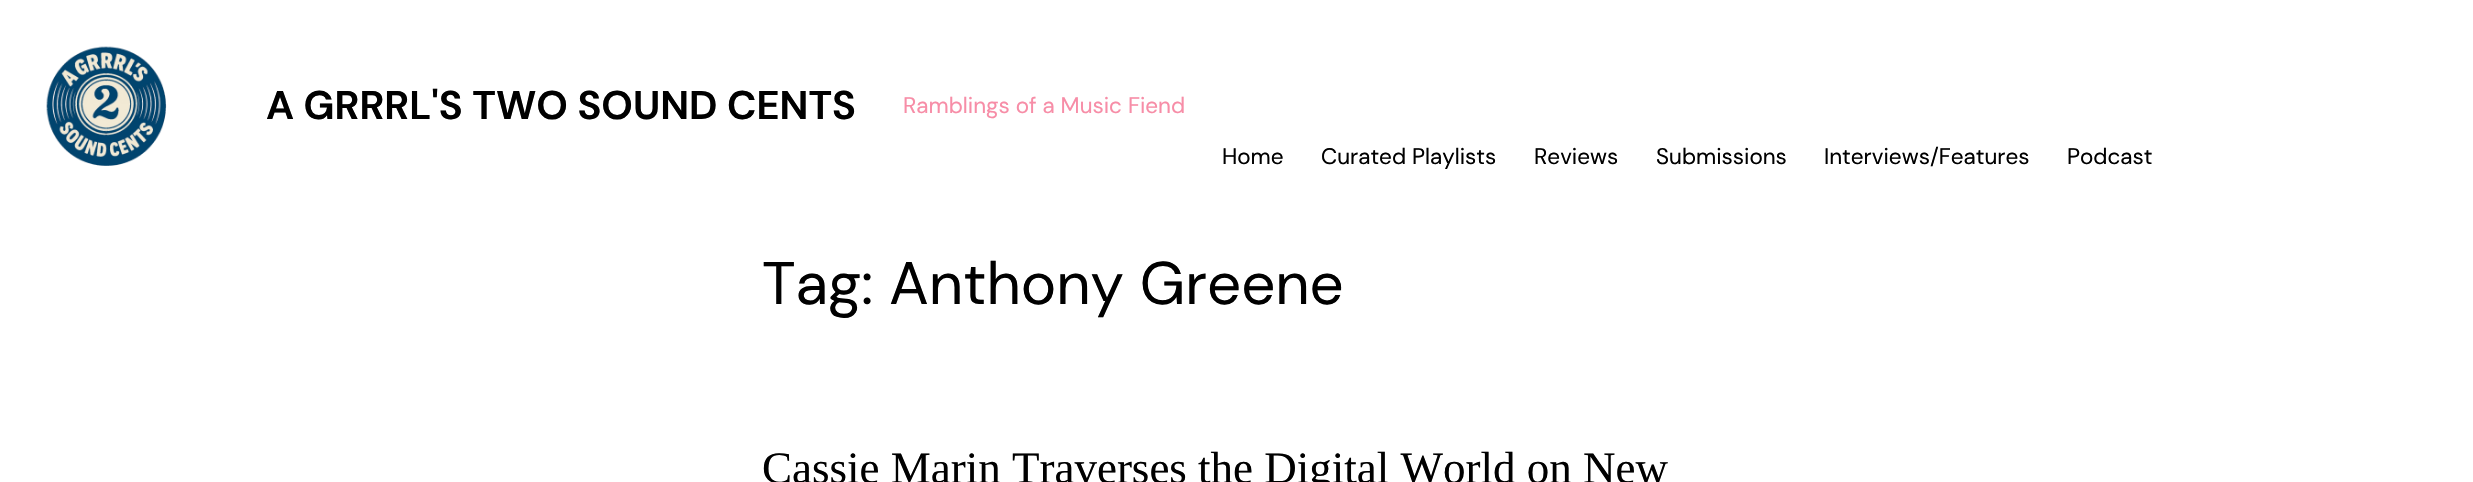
#include "include/core/SkBlurTypes.h"
#include "include/core/SkCanvas.h"
#include "include/core/SkData.h"
#include "include/core/SkFont.h"
#include "include/core/SkFontMgr.h"
#include "include/core/SkImage.h"
#include "include/core/SkMaskFilter.h"
#include "include/core/SkPaint.h"
#include "include/core/SkPathBuilder.h"
#include "include/core/SkTextBlob.h"
#include "include/effects/SkDashPathEffect.h"
#include "include/effects/SkGradientShader.h"
#include "include/utils/SkParsePath.h"

extern sk_sp<SkFontMgr> fontMgr;

void draw(SkCanvas* canvas) {
    SkPaint p;
    p.setAntiAlias(true);
    auto font = [&](const char* family, int weight, float size, bool italic = false) {
        SkFontStyle style(weight, SkFontStyle::kNormal_Width,
            italic ? SkFontStyle::kItalic_Slant : SkFontStyle::kUpright_Slant);
        SkFont result(fontMgr->matchFamilyStyle(family, style), size);
        result.setSubpixel(true);
        return result;
    };
    auto drawPhoto = [&](const char* path, float l, float t, float r, float b) {
        auto image = SkImages::DeferredFromEncodedData(SkData::MakeFromFileName(path));
        canvas->drawImageRect(image, SkRect::MakeLTRB(l, t, r, b), SkSamplingOptions());
    };
    canvas->clear(0xFFFFFFFF);
    drawPhoto("media/1.png", 46, 46, 167, 166);
    auto font1 = font("DM Sans", 700, 40);
    p.setColor(0xFF000000);
    canvas->drawString("A GRRRL'S TWO SOUND CENTS", 266, 119, font1, p);
    auto font2 = font("DM Sans", 400, 22.5f);
    p.setColor(0xFFF78DA7);
    canvas->drawString("Ramblings of a Music Fiend", 903, 113, font2, p);
    p.setColor(0xFF000000);
    {
        const struct { const char* s; float x, y; } items[] = {
            {"Home", 1222, 164},
            {"Curated Playlists", 1321, 164},
            {"Reviews", 1534, 164},
            {"Submissions", 1656, 164},
            {"Interviews/Features", 1824, 164},
            {"Podcast", 2067, 164},
        };
        for (auto [s, x, y] : items) {
            canvas->drawString(s, x, y, font2, p);
        }
    }
    auto font3 = font("DM Sans", 400, 60);
    canvas->drawString("Tag: Anthony Greene", 762, 304, font3, p);
    auto font4 = font("Liberation Serif", 400, 45);
    canvas->drawString("Cassie Marin Traverses the Digital World on New", 762, 483, font4, p);
}
